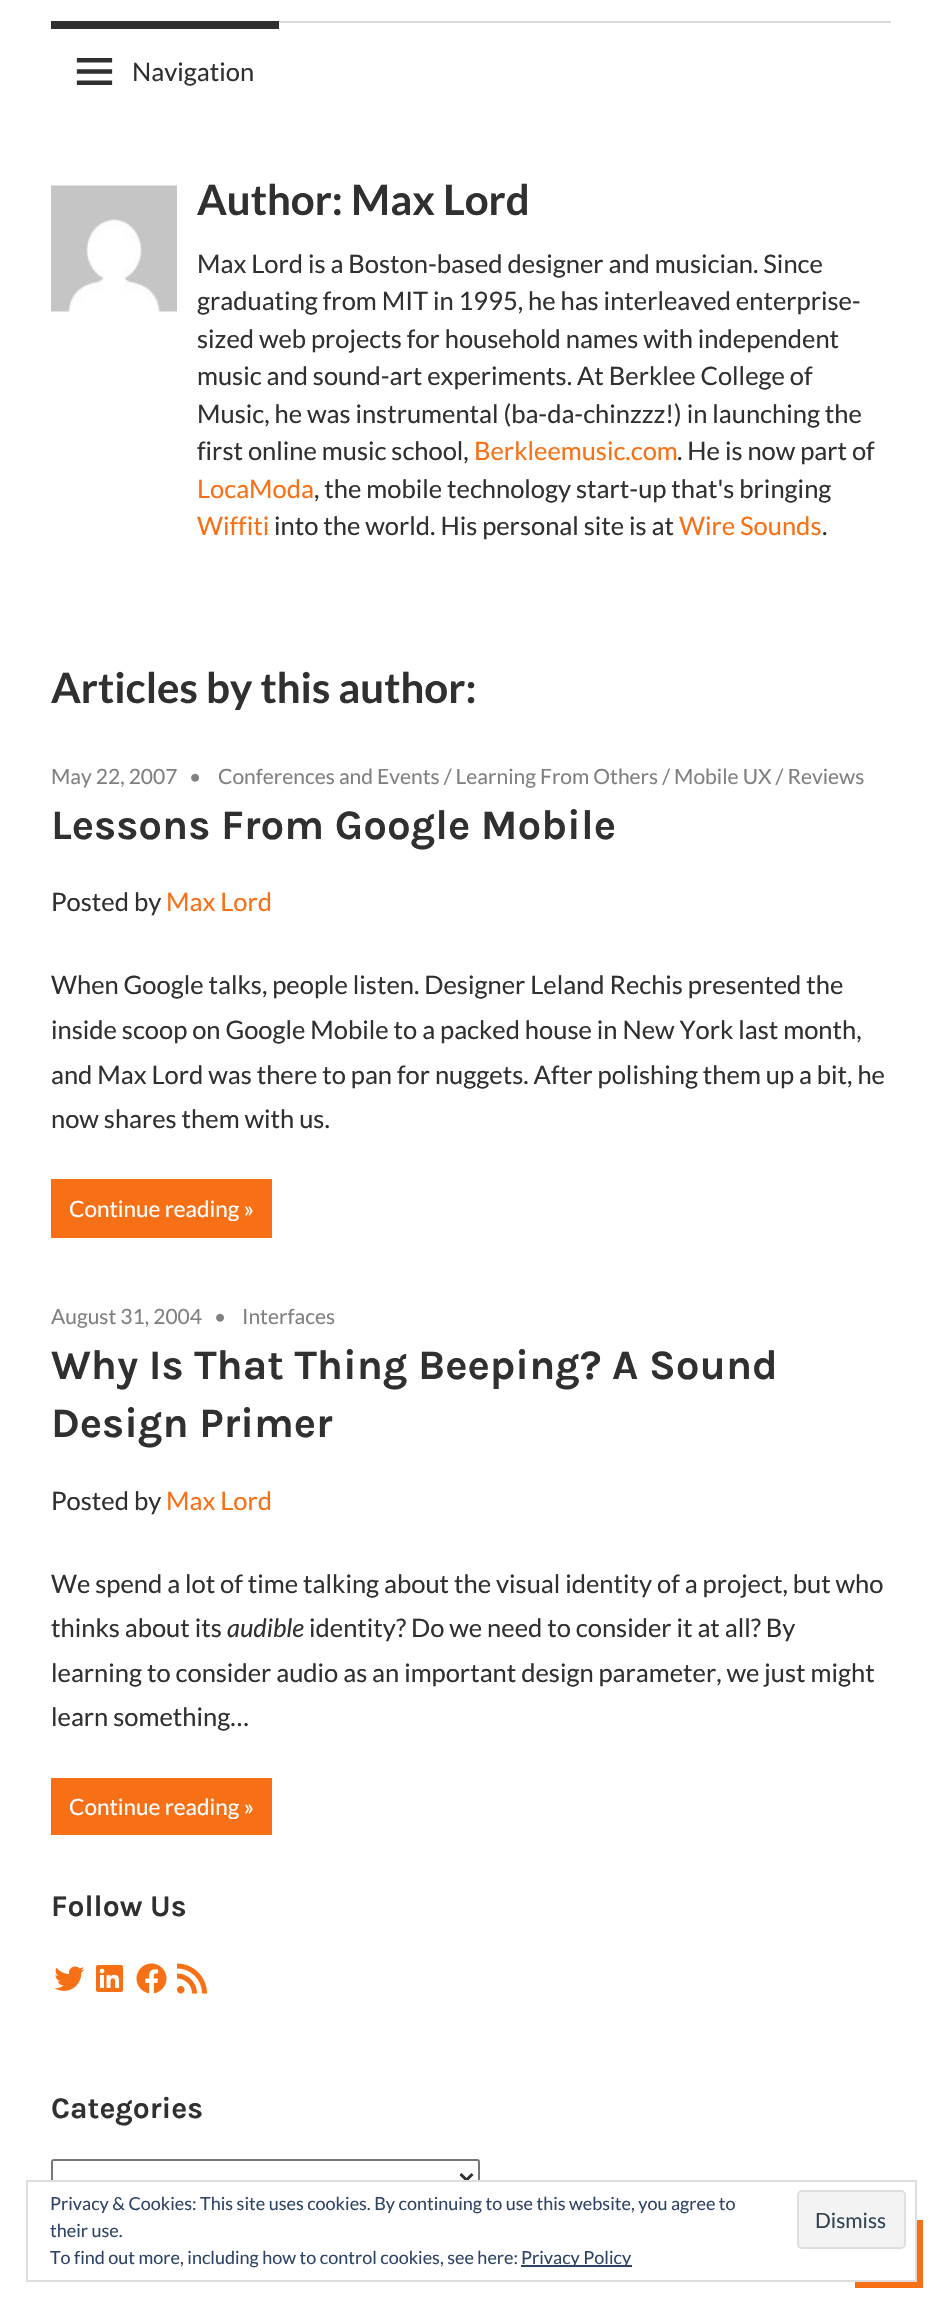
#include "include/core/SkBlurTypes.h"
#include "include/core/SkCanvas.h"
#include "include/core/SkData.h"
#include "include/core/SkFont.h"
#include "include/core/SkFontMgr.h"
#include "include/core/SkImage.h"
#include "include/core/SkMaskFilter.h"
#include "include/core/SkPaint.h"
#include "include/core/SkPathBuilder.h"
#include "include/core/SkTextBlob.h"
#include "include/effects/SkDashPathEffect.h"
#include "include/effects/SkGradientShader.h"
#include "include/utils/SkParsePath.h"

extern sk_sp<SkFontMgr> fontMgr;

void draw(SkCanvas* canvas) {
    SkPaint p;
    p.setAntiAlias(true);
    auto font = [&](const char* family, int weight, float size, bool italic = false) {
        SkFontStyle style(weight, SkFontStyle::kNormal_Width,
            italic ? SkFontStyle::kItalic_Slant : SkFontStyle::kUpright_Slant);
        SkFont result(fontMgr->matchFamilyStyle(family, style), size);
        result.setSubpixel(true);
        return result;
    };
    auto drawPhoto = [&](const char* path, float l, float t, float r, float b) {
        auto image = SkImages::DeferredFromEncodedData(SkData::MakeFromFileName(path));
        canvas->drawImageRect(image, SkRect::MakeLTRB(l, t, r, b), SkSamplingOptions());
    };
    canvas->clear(0xFFFFFFFF);
    p.setColor(0xFFD9D9D9);
    canvas->drawRect(SkRect::MakeLTRB(279, 21, 891, 23), p);
    p.setColor(0xFF303030);
    canvas->drawRect(SkRect::MakeLTRB(51, 21, 279, 29), p);
    drawPhoto("media/1.png", 76, 58, 113, 85);
    auto font1 = font("Lato", 400, 25.5f);
    canvas->drawString("Navigation", 132, 81, font1, p);
    drawPhoto("media/2.png", 51, 185, 177, 312);
    auto font2 = font("Lato", 700, 42);
    canvas->drawString("Author: Max Lord", 197, 215, font2, p);
    {
        const struct { const char* s; float x, y; } items[] = {
            {"Max Lord is a Boston-based designer and musician. Since", 197, 273},
            {"graduating from MIT in 1995, he has interleaved enterprise-", 197, 310},
            {"sized web projects for household names with independent", 197, 348},
            {"music and sound-art experiments. At Berklee College of", 197, 385},
            {"Music, he was instrumental (ba-da-chinzzz!) in launching the", 197, 423},
            {"first online music school,", 197, 460},
        };
        for (auto [s, x, y] : items) {
            canvas->drawString(s, x, y, font1, p);
        }
    }
    p.setColor(0xFFF87015);
    canvas->drawString("Berkleemusic.com", 474, 460, font1, p);
    p.setColor(0xFF303030);
    canvas->drawString(". He is now part of", 677, 460, font1, p);
    p.setColor(0xFFF87015);
    canvas->drawString("LocaModa", 197, 498, font1, p);
    p.setColor(0xFF303030);
    canvas->drawString(", the mobile technology start-up that's bringing", 314, 498, font1, p);
    p.setColor(0xFFF87015);
    canvas->drawString("Wiffiti", 197, 535, font1, p);
    p.setColor(0xFF303030);
    canvas->drawString("into the world. His personal site is at", 274, 535, font1, p);
    p.setColor(0xFFF87015);
    canvas->drawString("Wire Sounds", 679, 535, font1, p);
    p.setColor(0xFF303030);
    canvas->drawString(".", 822, 535, font1, p);
    canvas->drawString("Articles by this author:", 51, 703, font2, p);
    auto font3 = font("Lato", 400, 21);
    p.setColor(0xFF808080);
    {
        const struct { const char* s; float x, y; } items[] = {
            {"May 22, 2007", 51, 784},
            {"•", 189, 784},
            {"Conferences and Events / Learning From Others / Mobile UX / Reviews", 218, 784},
        };
        for (auto [s, x, y] : items) {
            canvas->drawString(s, x, y, font3, p);
        }
    }
    auto font4 = font("Karla", 700, 42);
    p.setColor(0xFF303030);
    canvas->drawString("Lessons From Google Mobile", 51, 839, font4, p);
    canvas->drawString("Posted by", 51, 911, font1, p);
    p.setColor(0xFFF87015);
    canvas->drawString("Max Lord", 166, 911, font1, p);
    p.setColor(0xFF303030);
    {
        const struct { const char* s; float x, y; } items[] = {
            {"When Google talks, people listen. Designer Leland Rechis presented the", 51, 994},
            {"inside scoop on Google Mobile to a packed house in New York last month,", 51, 1039},
            {"and Max Lord was there to pan for nuggets. After polishing them up a bit, he", 51, 1084},
            {"now shares them with us.", 51, 1128},
        };
        for (auto [s, x, y] : items) {
            canvas->drawString(s, x, y, font1, p);
        }
    }
    p.setColor(0xFFF87015);
    canvas->drawRect(SkRect::MakeLTRB(51, 1179, 272, 1238), p);
    auto font5 = font("Lato", 400, 22.5f);
    p.setColor(0xFFFFFFFF);
    canvas->drawString("Continue reading »", 69, 1217, font5, p);
    p.setColor(0xFF808080);
    {
        const struct { const char* s; float x, y; } items[] = {
            {"August 31, 2004", 51, 1324},
            {"•", 214, 1324},
            {"Interfaces", 242, 1324},
        };
        for (auto [s, x, y] : items) {
            canvas->drawString(s, x, y, font3, p);
        }
    }
    p.setColor(0xFF303030);
    canvas->drawString("Why Is That Thing Beeping? A Sound", 51, 1379, font4, p);
    canvas->drawString("Design Primer", 51, 1437, font4, p);
    canvas->drawString("Posted by", 51, 1510, font1, p);
    p.setColor(0xFFF87015);
    canvas->drawString("Max Lord", 166, 1510, font1, p);
    p.setColor(0xFF303030);
    canvas->drawString("We spend a lot of time talking about the visual identity of a project, but who", 51, 1593, font1, p);
    canvas->drawString("thinks about its", 51, 1637, font1, p);
    auto font6 = font("Lato", 400, 25.5f, true);
    canvas->drawString("audible", 227, 1637, font6, p);
    {
        const struct { const char* s; float x, y; } items[] = {
            {"identity? Do we need to consider it at all? By", 309, 1637},
            {"learning to consider audio as an important design parameter, we just might", 51, 1682},
            {"learn something…", 51, 1726},
        };
        for (auto [s, x, y] : items) {
            canvas->drawString(s, x, y, font1, p);
        }
    }
    p.setColor(0xFFF87015);
    canvas->drawRect(SkRect::MakeLTRB(51, 1778, 272, 1835), p);
    p.setColor(0xFFFFFFFF);
    canvas->drawString("Continue reading »", 69, 1815, font5, p);
    auto font7 = font("Karla", 700, 30);
    p.setColor(0xFF303030);
    canvas->drawString("Follow Us", 51, 1916, font7, p);
    drawPhoto("media/3.png", 54, 1966, 85, 1991);
    drawPhoto("media/4.png", 96, 1965, 123, 1992);
    drawPhoto("media/5.png", 136, 1963, 167, 1994);
    drawPhoto("media/6.png", 177, 1963, 207, 1994);
    canvas->drawString("Categories", 51, 2118, font7, p);
    p.setStyle(SkPaint::kStroke_Style);
    p.setStrokeWidth(2);
    p.setColor(0xFF767676);
    canvas->drawRoundRect(SkRect::MakeLTRB(52, 2160, 479, 2195), 2, 2, p);
    p.setStrokeWidth(3);
    p.setColor(0xFF303030);
    canvas->drawPath(SkPathBuilder().moveTo(460.5f, 2174).lineTo(466.5f, 2180).lineTo(472.5f, 2174).detach(), p);
    p.setStyle(SkPaint::kFill_Style);
    p.setColor(0xFFF87015);
    canvas->drawRect(SkRect::MakeLTRB(855, 2220, 923, 2288), p);
    p.setColor(0xFFFFFFFF);
    canvas->drawRect(SkRect::MakeLTRB(51, 2182, 915, 2280), p);
    p.setStyle(SkPaint::kStroke_Style);
    p.setStrokeWidth(2);
    p.setColor(0xFFDEDEDE);
    canvas->drawRect(SkRect::MakeLTRB(27, 2181, 916, 2281), p);
    auto font8 = font("Lato", 400, 18);
    p.setStyle(SkPaint::kFill_Style);
    p.setColor(0xFF2E4467);
    canvas->drawString("Privacy & Cookies: This site uses cookies. By continuing to use this website, you agree to", 50, 2210, font8, p);
    p.setColor(0xFFF3F3F3);
    canvas->drawRoundRect(SkRect::MakeLTRB(798, 2191, 905, 2248), 4, 4, p);
    p.setStyle(SkPaint::kStroke_Style);
    p.setColor(0xFFDEDEDE);
    canvas->drawRoundRect(SkRect::MakeLTRB(798, 2191, 905, 2248), 4, 4, p);
    p.setStyle(SkPaint::kFill_Style);
    p.setColor(0xFF2E4453);
    canvas->drawString("Dismiss", 815, 2228, font3, p);
    p.setColor(0xFF2E4467);
    canvas->drawString("their use.", 50, 2237, font8, p);
    canvas->drawString("To find out more, including how to control cookies, see here:", 50, 2264, font8, p);
    canvas->drawRect(SkRect::MakeLTRB(521, 2265, 632, 2267), p);
    canvas->drawString("Privacy Policy", 521, 2264, font8, p);
}
